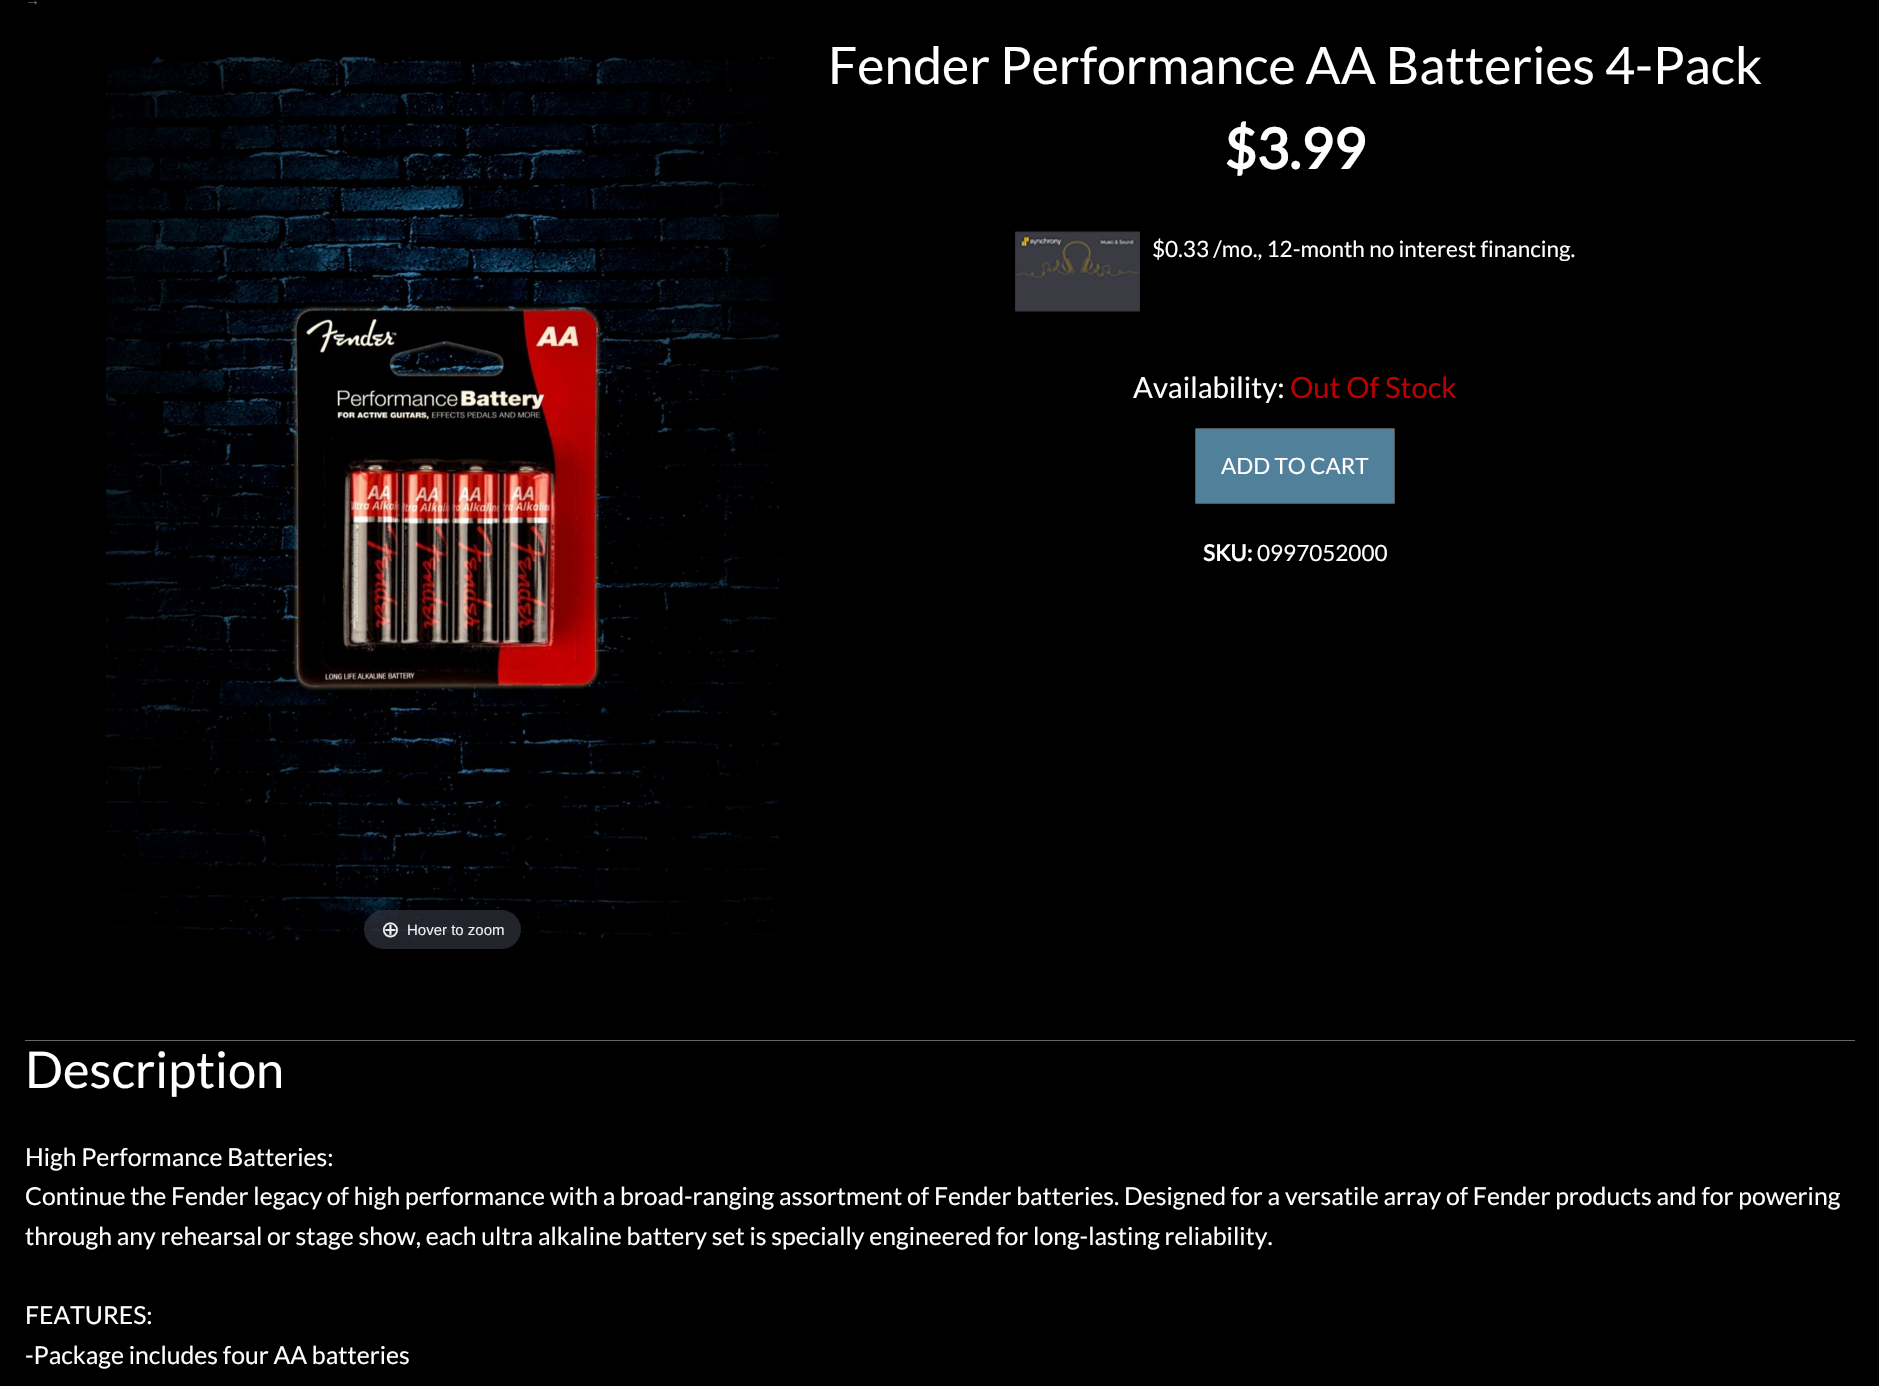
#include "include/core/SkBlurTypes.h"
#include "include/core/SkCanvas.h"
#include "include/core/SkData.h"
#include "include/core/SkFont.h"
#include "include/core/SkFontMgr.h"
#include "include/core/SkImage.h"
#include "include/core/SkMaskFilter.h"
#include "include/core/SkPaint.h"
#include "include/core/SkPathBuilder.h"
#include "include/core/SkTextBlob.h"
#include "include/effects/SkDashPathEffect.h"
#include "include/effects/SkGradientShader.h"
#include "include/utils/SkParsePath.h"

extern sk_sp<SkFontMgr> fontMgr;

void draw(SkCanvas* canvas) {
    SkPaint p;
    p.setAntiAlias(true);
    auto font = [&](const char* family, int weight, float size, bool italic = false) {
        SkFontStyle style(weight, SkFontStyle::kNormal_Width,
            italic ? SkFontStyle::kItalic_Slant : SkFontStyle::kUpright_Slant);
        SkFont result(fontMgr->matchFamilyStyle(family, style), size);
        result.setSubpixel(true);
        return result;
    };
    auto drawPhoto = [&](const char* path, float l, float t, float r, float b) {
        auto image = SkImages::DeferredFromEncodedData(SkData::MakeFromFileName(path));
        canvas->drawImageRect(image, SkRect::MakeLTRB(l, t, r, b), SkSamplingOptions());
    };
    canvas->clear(0xFF000000);
    auto font1 = font("Liberation Sans", 400, 15);
    p.setColor(0xFF777777);
    canvas->drawString("→", 25, 5, font1, p);
    auto font2 = font("Lato", 400, 51.75f);
    p.setColor(0xFFFFFFFF);
    canvas->drawString("Fender Performance AA Batteries 4-Pack", 828, 84, font2, p);
    auto font3 = font("Lato", 700, 56);
    canvas->drawString("$3.99", 1224, 169, font3, p);
    drawPhoto("media/1.png", 1015, 231, 1140, 312);
    auto font4 = font("Lato", 400, 22.5f);
    canvas->drawString("$0.33 /mo., 12-month no interest financing.", 1152, 257, font4, p);
    auto font5 = font("Lato", 400, 29.25f);
    canvas->drawString("Availability:", 1133, 398, font5, p);
    p.setColor(0xFFBB0000);
    canvas->drawString("Out Of Stock", 1290, 398, font5, p);
    p.setColor(0xFF51809B);
    canvas->drawRoundRect(SkRect::MakeLTRB(1195.5f, 428.5f, 1394.5f, 503.5f), 0.5f, 0.5f, p);
    p.setStyle(SkPaint::kStroke_Style);
    p.setStrokeWidth(1);
    p.setColor(0xFF555555);
    canvas->drawRoundRect(SkRect::MakeLTRB(1195.5f, 428.5f, 1394.5f, 503.5f), 0.5f, 0.5f, p);
    p.setStyle(SkPaint::kFill_Style);
    p.setColor(0xFFFFFFFF);
    canvas->drawString("ADD TO CART", 1221, 474, font4, p);
    auto font6 = font("Lato", 700, 22.5f);
    canvas->drawString("SKU:", 1203, 561, font6, p);
    canvas->drawString("0997052000", 1257, 561, font4, p);
    drawPhoto("media/2.png", 106, 55, 779, 942);
    p.setColor(0xB331333D);
    canvas->drawRoundRect(SkRect::MakeLTRB(364, 910, 521, 949), 19.5f, 19.5f, p);
    auto font7 = font("DejaVu Sans", 400, 22.5f);
    p.setColor(0xFFEEEEEE);
    canvas->drawString("⊕", 381, 937, font7, p);
    canvas->drawString("Hover to zoom", 407, 935, font1, p);
    p.setColor(0xFF666666);
    canvas->drawRect(SkRect::MakeLTRB(25, 1040, 1855, 1041), p);
    auto font8 = font("Lato", 400, 50.5f);
    p.setColor(0xFFFFFFFF);
    canvas->drawString("Description", 25, 1088, font8, p);
    auto font9 = font("Lato", 400, 24.75f);
    {
        const struct { const char* s; float x, y; } items[] = {
            {"High Performance Batteries:", 25, 1166},
            {"Continue the Fender legacy of high performance with a broad-ranging assortment of Fender batteries. Designed for a versatile array of Fender products and for powering", 25, 1205},
            {"through any rehearsal or stage show, each ultra alkaline battery set is specially engineered for long-lasting reliability.", 25, 1245},
            {"FEATURES:", 25, 1324},
            {"-Package includes four AA batteries", 25, 1364},
        };
        for (auto [s, x, y] : items) {
            canvas->drawString(s, x, y, font9, p);
        }
    }
}
